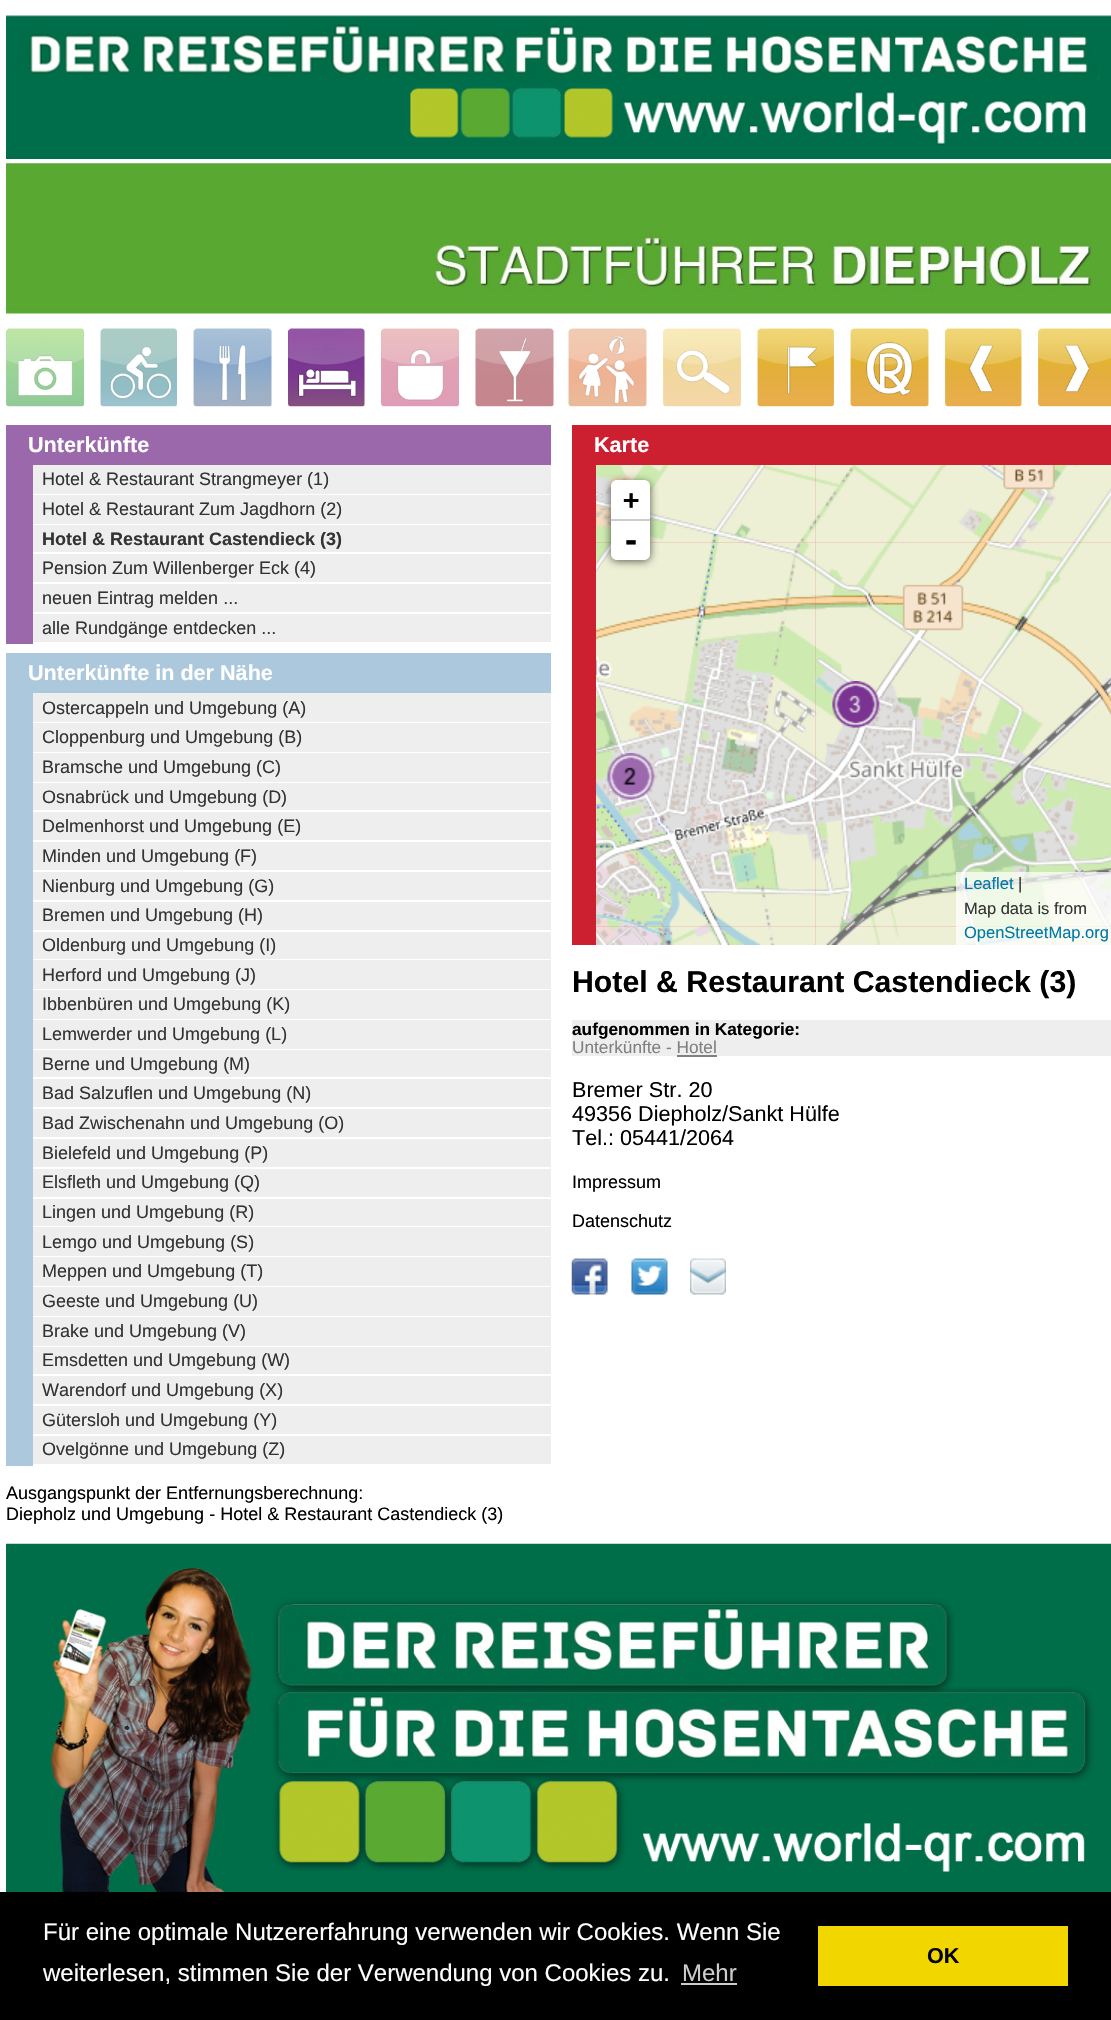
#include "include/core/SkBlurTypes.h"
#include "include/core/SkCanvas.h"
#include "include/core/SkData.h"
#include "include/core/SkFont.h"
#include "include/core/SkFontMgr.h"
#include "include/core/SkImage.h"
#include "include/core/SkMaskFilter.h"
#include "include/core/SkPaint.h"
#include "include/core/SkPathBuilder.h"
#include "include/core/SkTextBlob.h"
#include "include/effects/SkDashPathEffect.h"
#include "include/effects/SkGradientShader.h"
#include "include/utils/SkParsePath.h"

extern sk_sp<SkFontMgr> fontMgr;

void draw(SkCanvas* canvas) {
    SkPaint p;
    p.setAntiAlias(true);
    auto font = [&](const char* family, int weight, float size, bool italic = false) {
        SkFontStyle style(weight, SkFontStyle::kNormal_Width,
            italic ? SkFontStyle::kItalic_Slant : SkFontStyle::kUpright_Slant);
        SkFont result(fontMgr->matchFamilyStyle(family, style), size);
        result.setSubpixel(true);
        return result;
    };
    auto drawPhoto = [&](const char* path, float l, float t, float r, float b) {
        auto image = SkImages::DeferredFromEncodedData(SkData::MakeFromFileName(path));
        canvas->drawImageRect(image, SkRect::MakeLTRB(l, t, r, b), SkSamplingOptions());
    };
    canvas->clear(0xFFFFFFFF);
    drawPhoto("media/1.png", 6, 15, 1111, 159);
    drawPhoto("media/2.png", 6, 162, 1111, 314);
    drawPhoto("media/3.png", 6, 328, 84, 407);
    drawPhoto("media/4.png", 100, 328, 177, 407);
    drawPhoto("media/5.png", 193, 328, 272, 407);
    drawPhoto("media/6.png", 288, 328, 365, 407);
    drawPhoto("media/7.png", 381, 328, 459, 407);
    drawPhoto("media/8.png", 475, 328, 554, 407);
    drawPhoto("media/9.png", 568, 328, 647, 407);
    drawPhoto("media/10.png", 663, 328, 741, 407);
    drawPhoto("media/11.png", 757, 328, 834, 407);
    drawPhoto("media/12.png", 850, 328, 929, 407);
    drawPhoto("media/13.png", 945, 328, 1022, 407);
    drawPhoto("media/14.png", 1038, 328, 1111, 407);
    p.setColor(0xFF9B68AC);
    canvas->drawRect(SkRect::MakeLTRB(6, 425, 551, 644), p);
    auto font1 = font("Liberation Sans", 700, 21.6f);
    p.setColor(0xFFFFFFFF);
    canvas->drawString("Unterkünfte", 28, 452, font1, p);
    p.setColor(0xFFEEEEEE);
    canvas->drawRect(SkRect::MakeLTRB(33, 465, 551, 494), p);
    p.setColor(0xFFFFFFFF);
    canvas->drawRect(SkRect::MakeLTRB(33, 494, 551, 495), p);
    auto font2 = font("Liberation Sans", 400, 18);
    p.setColor(0xFF333333);
    canvas->drawString("Hotel & Restaurant Strangmeyer (1)", 42, 485, font2, p);
    p.setColor(0xFFEEEEEE);
    canvas->drawRect(SkRect::MakeLTRB(33, 495, 551, 524), p);
    p.setColor(0xFFFFFFFF);
    canvas->drawRect(SkRect::MakeLTRB(33, 524, 551, 525), p);
    p.setColor(0xFF333333);
    canvas->drawString("Hotel & Restaurant Zum Jagdhorn (2)", 42, 515, font2, p);
    p.setColor(0xFFEEEEEE);
    canvas->drawRect(SkRect::MakeLTRB(33, 525, 551, 552), p);
    p.setColor(0xFFFFFFFF);
    canvas->drawRect(SkRect::MakeLTRB(33, 552, 551, 554), p);
    auto font3 = font("Liberation Sans", 700, 18);
    p.setColor(0xFF333333);
    canvas->drawString("Hotel & Restaurant Castendieck (3)", 42, 545, font3, p);
    p.setColor(0xFFEEEEEE);
    canvas->drawRect(SkRect::MakeLTRB(33, 554, 551, 582), p);
    p.setColor(0xFFFFFFFF);
    canvas->drawRect(SkRect::MakeLTRB(33, 582, 551, 584), p);
    p.setColor(0xFF333333);
    canvas->drawString("Pension Zum Willenberger Eck (4)", 42, 574, font2, p);
    p.setColor(0xFFEEEEEE);
    canvas->drawRect(SkRect::MakeLTRB(33, 584, 551, 612), p);
    p.setColor(0xFFFFFFFF);
    canvas->drawRect(SkRect::MakeLTRB(33, 612, 551, 614), p);
    p.setColor(0xFF333333);
    canvas->drawString("neuen Eintrag melden ...", 42, 604, font2, p);
    p.setColor(0xFFEEEEEE);
    canvas->drawRect(SkRect::MakeLTRB(33, 614, 551, 642), p);
    p.setColor(0xFFFFFFFF);
    canvas->drawRect(SkRect::MakeLTRB(33, 642, 551, 644), p);
    p.setColor(0xFF333333);
    canvas->drawString("alle Rundgänge entdecken ...", 42, 634, font2, p);
    p.setColor(0xFFABC8DC);
    canvas->drawRect(SkRect::MakeLTRB(6, 653, 551, 1466), p);
    p.setColor(0xFFFFFFFF);
    canvas->drawString("Unterkünfte in der Nähe", 28, 680, font1, p);
    p.setColor(0xFFEEEEEE);
    canvas->drawRect(SkRect::MakeLTRB(33, 693, 551, 722), p);
    p.setColor(0xFFFFFFFF);
    canvas->drawRect(SkRect::MakeLTRB(33, 722, 551, 723), p);
    p.setColor(0xFF333333);
    canvas->drawString("Ostercappeln und Umgebung (A)", 42, 714, font2, p);
    p.setColor(0xFFEEEEEE);
    canvas->drawRect(SkRect::MakeLTRB(33, 723, 551, 752), p);
    p.setColor(0xFFFFFFFF);
    canvas->drawRect(SkRect::MakeLTRB(33, 752, 551, 753), p);
    p.setColor(0xFF333333);
    canvas->drawString("Cloppenburg und Umgebung (B)", 42, 743, font2, p);
    p.setColor(0xFFEEEEEE);
    canvas->drawRect(SkRect::MakeLTRB(33, 753, 551, 782), p);
    p.setColor(0xFFFFFFFF);
    canvas->drawRect(SkRect::MakeLTRB(33, 782, 551, 783), p);
    p.setColor(0xFF333333);
    canvas->drawString("Bramsche und Umgebung (C)", 42, 773, font2, p);
    p.setColor(0xFFEEEEEE);
    canvas->drawRect(SkRect::MakeLTRB(33, 783, 551, 810), p);
    p.setColor(0xFFFFFFFF);
    canvas->drawRect(SkRect::MakeLTRB(33, 810, 551, 812), p);
    p.setColor(0xFF333333);
    canvas->drawString("Osnabrück und Umgebung (D)", 42, 803, font2, p);
    p.setColor(0xFFEEEEEE);
    canvas->drawRect(SkRect::MakeLTRB(33, 812, 551, 840), p);
    p.setColor(0xFFFFFFFF);
    canvas->drawRect(SkRect::MakeLTRB(33, 840, 551, 842), p);
    p.setColor(0xFF333333);
    canvas->drawString("Delmenhorst und Umgebung (E)", 42, 832, font2, p);
    p.setColor(0xFFEEEEEE);
    canvas->drawRect(SkRect::MakeLTRB(33, 842, 551, 870), p);
    p.setColor(0xFFFFFFFF);
    canvas->drawRect(SkRect::MakeLTRB(33, 870, 551, 872), p);
    p.setColor(0xFF333333);
    canvas->drawString("Minden und Umgebung (F)", 42, 862, font2, p);
    p.setColor(0xFFEEEEEE);
    canvas->drawRect(SkRect::MakeLTRB(33, 872, 551, 900), p);
    p.setColor(0xFFFFFFFF);
    canvas->drawRect(SkRect::MakeLTRB(33, 900, 551, 902), p);
    p.setColor(0xFF333333);
    canvas->drawString("Nienburg und Umgebung (G)", 42, 892, font2, p);
    p.setColor(0xFFEEEEEE);
    canvas->drawRect(SkRect::MakeLTRB(33, 902, 551, 930), p);
    p.setColor(0xFFFFFFFF);
    canvas->drawRect(SkRect::MakeLTRB(33, 930, 551, 932), p);
    p.setColor(0xFF333333);
    canvas->drawString("Bremen und Umgebung (H)", 42, 921, font2, p);
    p.setColor(0xFFEEEEEE);
    canvas->drawRect(SkRect::MakeLTRB(33, 932, 551, 959), p);
    p.setColor(0xFFFFFFFF);
    canvas->drawRect(SkRect::MakeLTRB(33, 959, 551, 960), p);
    p.setColor(0xFF333333);
    canvas->drawString("Oldenburg und Umgebung (I)", 42, 951, font2, p);
    p.setColor(0xFFEEEEEE);
    canvas->drawRect(SkRect::MakeLTRB(33, 960, 551, 989), p);
    p.setColor(0xFFFFFFFF);
    canvas->drawRect(SkRect::MakeLTRB(33, 989, 551, 990), p);
    p.setColor(0xFF333333);
    canvas->drawString("Herford und Umgebung (J)", 42, 981, font2, p);
    p.setColor(0xFFEEEEEE);
    canvas->drawRect(SkRect::MakeLTRB(33, 990, 551, 1019), p);
    p.setColor(0xFFFFFFFF);
    canvas->drawRect(SkRect::MakeLTRB(33, 1019, 551, 1020), p);
    p.setColor(0xFF333333);
    canvas->drawString("Ibbenbüren und Umgebung (K)", 42, 1010, font2, p);
    p.setColor(0xFFEEEEEE);
    canvas->drawRect(SkRect::MakeLTRB(33, 1020, 551, 1049), p);
    p.setColor(0xFFFFFFFF);
    canvas->drawRect(SkRect::MakeLTRB(33, 1049, 551, 1050), p);
    p.setColor(0xFF333333);
    canvas->drawString("Lemwerder und Umgebung (L)", 42, 1040, font2, p);
    p.setColor(0xFFEEEEEE);
    canvas->drawRect(SkRect::MakeLTRB(33, 1050, 551, 1077), p);
    p.setColor(0xFFFFFFFF);
    canvas->drawRect(SkRect::MakeLTRB(33, 1077, 551, 1079), p);
    p.setColor(0xFF333333);
    canvas->drawString("Berne und Umgebung (M)", 42, 1070, font2, p);
    p.setColor(0xFFEEEEEE);
    canvas->drawRect(SkRect::MakeLTRB(33, 1079, 551, 1107), p);
    p.setColor(0xFFFFFFFF);
    canvas->drawRect(SkRect::MakeLTRB(33, 1107, 551, 1109), p);
    p.setColor(0xFF333333);
    canvas->drawString("Bad Salzuflen und Umgebung (N)", 42, 1099, font2, p);
    p.setColor(0xFFEEEEEE);
    canvas->drawRect(SkRect::MakeLTRB(33, 1109, 551, 1137), p);
    p.setColor(0xFFFFFFFF);
    canvas->drawRect(SkRect::MakeLTRB(33, 1137, 551, 1139), p);
    p.setColor(0xFF333333);
    canvas->drawString("Bad Zwischenahn und Umgebung (O)", 42, 1129, font2, p);
    p.setColor(0xFFEEEEEE);
    canvas->drawRect(SkRect::MakeLTRB(33, 1139, 551, 1167), p);
    p.setColor(0xFFFFFFFF);
    canvas->drawRect(SkRect::MakeLTRB(33, 1167, 551, 1169), p);
    p.setColor(0xFF333333);
    canvas->drawString("Bielefeld und Umgebung (P)", 42, 1159, font2, p);
    p.setColor(0xFFEEEEEE);
    canvas->drawRect(SkRect::MakeLTRB(33, 1169, 551, 1197), p);
    p.setColor(0xFFFFFFFF);
    canvas->drawRect(SkRect::MakeLTRB(33, 1197, 551, 1199), p);
    p.setColor(0xFF333333);
    canvas->drawString("Elsfleth und Umgebung (Q)", 42, 1188, font2, p);
    p.setColor(0xFFEEEEEE);
    canvas->drawRect(SkRect::MakeLTRB(33, 1199, 551, 1226), p);
    p.setColor(0xFFFFFFFF);
    canvas->drawRect(SkRect::MakeLTRB(33, 1226, 551, 1227), p);
    p.setColor(0xFF333333);
    canvas->drawString("Lingen und Umgebung (R)", 42, 1218, font2, p);
    p.setColor(0xFFEEEEEE);
    canvas->drawRect(SkRect::MakeLTRB(33, 1227, 551, 1256), p);
    p.setColor(0xFFFFFFFF);
    canvas->drawRect(SkRect::MakeLTRB(33, 1256, 551, 1257), p);
    p.setColor(0xFF333333);
    canvas->drawString("Lemgo und Umgebung (S)", 42, 1248, font2, p);
    p.setColor(0xFFEEEEEE);
    canvas->drawRect(SkRect::MakeLTRB(33, 1257, 551, 1286), p);
    p.setColor(0xFFFFFFFF);
    canvas->drawRect(SkRect::MakeLTRB(33, 1286, 551, 1287), p);
    p.setColor(0xFF333333);
    canvas->drawString("Meppen und Umgebung (T)", 42, 1277, font2, p);
    p.setColor(0xFFEEEEEE);
    canvas->drawRect(SkRect::MakeLTRB(33, 1287, 551, 1316), p);
    p.setColor(0xFFFFFFFF);
    canvas->drawRect(SkRect::MakeLTRB(33, 1316, 551, 1317), p);
    p.setColor(0xFF333333);
    canvas->drawString("Geeste und Umgebung (U)", 42, 1307, font2, p);
    p.setColor(0xFFEEEEEE);
    canvas->drawRect(SkRect::MakeLTRB(33, 1317, 551, 1346), p);
    p.setColor(0xFFFFFFFF);
    canvas->drawRect(SkRect::MakeLTRB(33, 1346, 551, 1347), p);
    p.setColor(0xFF333333);
    canvas->drawString("Brake und Umgebung (V)", 42, 1337, font2, p);
    p.setColor(0xFFEEEEEE);
    canvas->drawRect(SkRect::MakeLTRB(33, 1347, 551, 1374), p);
    p.setColor(0xFFFFFFFF);
    canvas->drawRect(SkRect::MakeLTRB(33, 1374, 551, 1376), p);
    p.setColor(0xFF333333);
    canvas->drawString("Emsdetten und Umgebung (W)", 42, 1366, font2, p);
    p.setColor(0xFFEEEEEE);
    canvas->drawRect(SkRect::MakeLTRB(33, 1376, 551, 1404), p);
    p.setColor(0xFFFFFFFF);
    canvas->drawRect(SkRect::MakeLTRB(33, 1404, 551, 1406), p);
    p.setColor(0xFF333333);
    canvas->drawString("Warendorf und Umgebung (X)", 42, 1396, font2, p);
    p.setColor(0xFFEEEEEE);
    canvas->drawRect(SkRect::MakeLTRB(33, 1406, 551, 1434), p);
    p.setColor(0xFFFFFFFF);
    canvas->drawRect(SkRect::MakeLTRB(33, 1434, 551, 1436), p);
    p.setColor(0xFF333333);
    canvas->drawString("Gütersloh und Umgebung (Y)", 42, 1426, font2, p);
    p.setColor(0xFFEEEEEE);
    canvas->drawRect(SkRect::MakeLTRB(33, 1436, 551, 1464), p);
    p.setColor(0xFFFFFFFF);
    canvas->drawRect(SkRect::MakeLTRB(33, 1464, 551, 1466), p);
    p.setColor(0xFF333333);
    canvas->drawString("Ovelgönne und Umgebung (Z)", 42, 1455, font2, p);
    p.setColor(0xFF000000);
    canvas->drawString("Ausgangspunkt der Entfernungsberechnung:", 6, 1499, font2, p);
    canvas->drawString("Diepholz und Umgebung - Hotel & Restaurant Castendieck (3)", 6, 1520, font2, p);
    p.setColor(0xFFCC1F2F);
    canvas->drawRect(SkRect::MakeLTRB(572, 425, 1111, 945), p);
    p.setColor(0xFFFFFFFF);
    canvas->drawString("Karte", 594, 452, font1, p);
    drawPhoto("media/17.png", 596, 543, 817, 928);
    drawPhoto("media/18.png", 816, 543, 1111, 927);
    drawPhoto("media/15.png", 596, 465, 817, 544);
    drawPhoto("media/16.png", 816, 465, 1111, 544);
    drawPhoto("media/19.png", 596, 927, 816, 945);
    drawPhoto("media/20.png", 816, 927, 1111, 945);
    drawPhoto("media/21.png", 832, 681, 880, 728);
    drawPhoto("media/22.png", 607, 753, 655, 800);
    p.setColor(0xA6000000);
    p.setMaskFilter(SkMaskFilter::MakeBlur(kNormal_SkBlurStyle, 4));
    canvas->drawRoundRect(SkRect::MakeLTRB(611, 482, 650, 561), 6, 6, p);
    p.setMaskFilter(nullptr);
    p.setColor(0xFFFFFFFF);
    canvas->drawPath(SkPathBuilder().moveTo(617, 480).lineTo(644, 480).cubicTo(647.5f, 480, 650, 482.5f, 650, 486).lineTo(650, 521).lineTo(611, 521).lineTo(611, 486).cubicTo(611, 482.5f, 613.5f, 480, 617, 480).close().detach(), p);
    p.setColor(0xFFCCCCCC);
    canvas->drawRect(SkRect::MakeLTRB(611, 519, 650, 521), p);
    auto font4 = font("DejaVu Sans Mono", 700, 27);
    p.setColor(0xFF000000);
    canvas->drawString("+", 623, 509, font4, p);
    p.setColor(0xFFFFFFFF);
    canvas->drawPath(SkPathBuilder().moveTo(611, 521).lineTo(650, 521).lineTo(650, 554).cubicTo(650, 557.5f, 647.5f, 560, 644, 560).lineTo(617, 560).cubicTo(613.5f, 560, 611, 557.5f, 611, 554).close().detach(), p);
    auto font5 = font("DejaVu Sans Mono", 700, 30);
    p.setColor(0xFF000000);
    canvas->drawString("-", 622, 551, font5, p);
    p.setColor(0xB3FFFFFF);
    canvas->drawRect(SkRect::MakeLTRB(956, 872, 1111, 945), p);
    auto font6 = font("Liberation Sans", 400, 16.5f);
    p.setColor(0xFF0078A8);
    canvas->drawString("Leaflet", 964, 889, font6, p);
    p.setColor(0xFF333333);
    canvas->drawString("|", 1018, 889, font6, p);
    canvas->drawString("Map data is from", 964, 914, font6, p);
    p.setColor(0xFF0078A8);
    canvas->drawString("OpenStreetMap.org", 964, 938, font6, p);
    auto font7 = font("Liberation Sans", 700, 30.25f);
    p.setColor(0xFF000000);
    canvas->drawString("Hotel & Restaurant Castendieck (3)", 572, 992, font7, p);
    p.setColor(0xFFEEEEEE);
    canvas->drawRect(SkRect::MakeLTRB(572, 1020, 1111, 1056), p);
    auto font8 = font("Liberation Sans", 700, 17.25f);
    p.setColor(0xFF000000);
    canvas->drawString("aufgenommen in Kategorie:", 572, 1035, font8, p);
    auto font9 = font("Liberation Sans", 400, 17.25f);
    p.setColor(0xFF808080);
    canvas->drawString("Unterkünfte - Hotel", 572, 1053, font9, p);
    canvas->drawRect(SkRect::MakeLTRB(677, 1055, 717, 1057), p);
    auto font10 = font("Liberation Sans", 400, 21.6f);
    p.setColor(0xFF000000);
    {
        const struct { const char* s; float x, y; } items[] = {
            {"Bremer Str. 20", 572, 1097},
            {"49356 Diepholz/Sankt Hülfe", 572, 1121},
            {"Tel.: 05441/2064", 572, 1145},
        };
        for (auto [s, x, y] : items) {
            canvas->drawString(s, x, y, font10, p);
        }
    }
    canvas->drawString("Impressum", 572, 1188, font2, p);
    canvas->drawString("Datenschutz", 572, 1227, font2, p);
    drawPhoto("media/23.png", 571, 1258, 608, 1295);
    drawPhoto("media/24.png", 631, 1258, 668, 1295);
    drawPhoto("media/25.png", 690, 1258, 726, 1295);
    drawPhoto("media/26.png", 6, 1543, 1111, 1892);
    canvas->drawRect(SkRect::MakeLTRB(0, 1892, 1111, 2020), p);
    auto font11 = font("Liberation Sans", 400, 24);
    p.setColor(0xFFFFFFFF);
    canvas->drawString("Für eine optimale Nutzererfahrung verwenden wir Cookies. Wenn Sie", 43, 1940, font11, p);
    canvas->drawString("weiterlesen, stimmen Sie der Verwendung von Cookies zu.", 43, 1981, font11, p);
    p.setColor(0xFFCCCCCC);
    canvas->drawString("Mehr", 682, 1981, font11, p);
    canvas->drawRect(SkRect::MakeLTRB(681, 1983, 737, 1985), p);
    p.setColor(0xFFF1D600);
    canvas->drawRect(SkRect::MakeLTRB(818, 1926, 1068, 1986), p);
    p.setColor(0xFF000000);
    canvas->drawString("OK", 927, 1963, font1, p);
}
